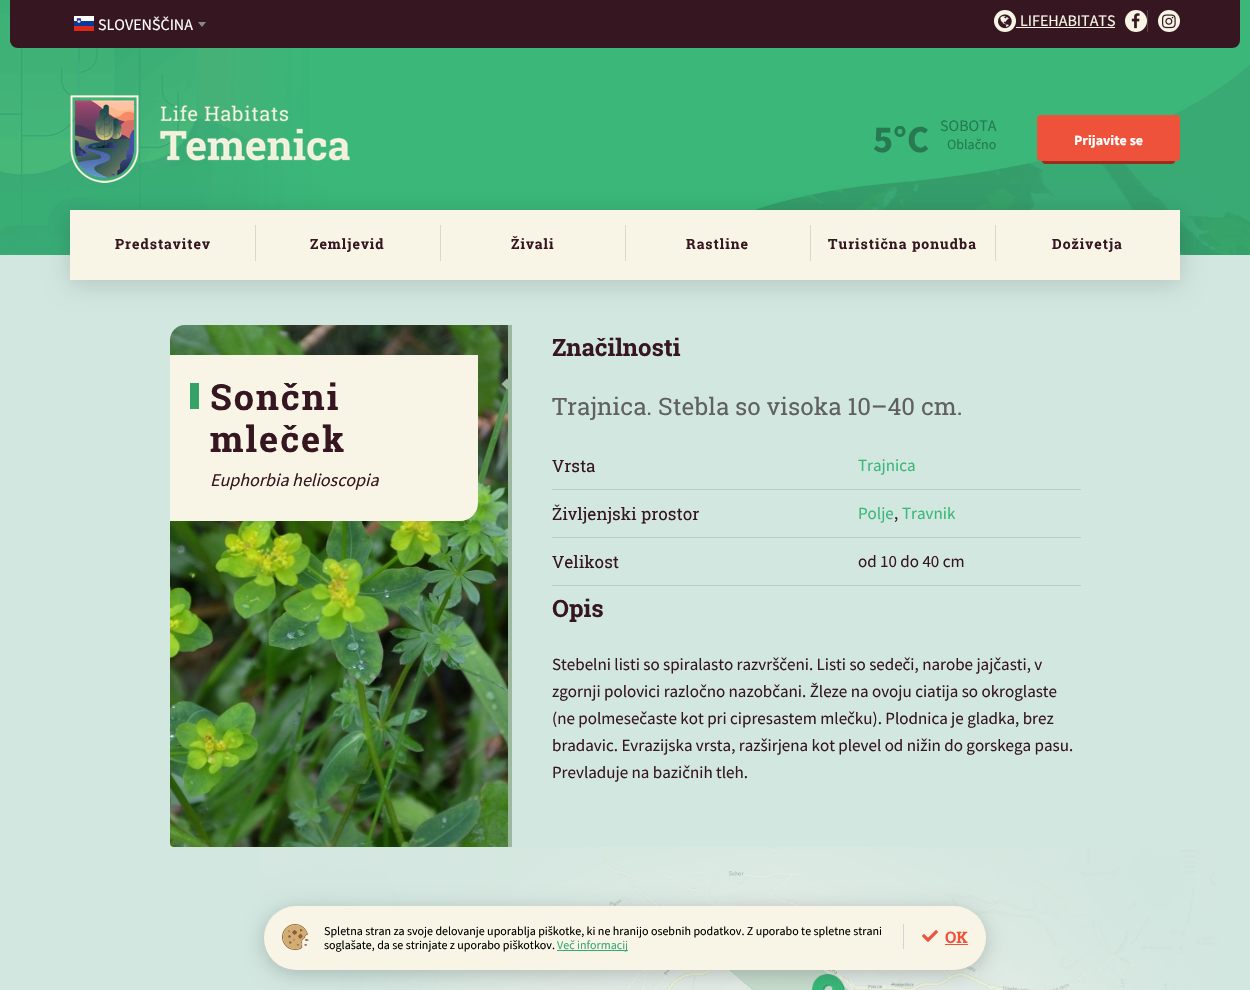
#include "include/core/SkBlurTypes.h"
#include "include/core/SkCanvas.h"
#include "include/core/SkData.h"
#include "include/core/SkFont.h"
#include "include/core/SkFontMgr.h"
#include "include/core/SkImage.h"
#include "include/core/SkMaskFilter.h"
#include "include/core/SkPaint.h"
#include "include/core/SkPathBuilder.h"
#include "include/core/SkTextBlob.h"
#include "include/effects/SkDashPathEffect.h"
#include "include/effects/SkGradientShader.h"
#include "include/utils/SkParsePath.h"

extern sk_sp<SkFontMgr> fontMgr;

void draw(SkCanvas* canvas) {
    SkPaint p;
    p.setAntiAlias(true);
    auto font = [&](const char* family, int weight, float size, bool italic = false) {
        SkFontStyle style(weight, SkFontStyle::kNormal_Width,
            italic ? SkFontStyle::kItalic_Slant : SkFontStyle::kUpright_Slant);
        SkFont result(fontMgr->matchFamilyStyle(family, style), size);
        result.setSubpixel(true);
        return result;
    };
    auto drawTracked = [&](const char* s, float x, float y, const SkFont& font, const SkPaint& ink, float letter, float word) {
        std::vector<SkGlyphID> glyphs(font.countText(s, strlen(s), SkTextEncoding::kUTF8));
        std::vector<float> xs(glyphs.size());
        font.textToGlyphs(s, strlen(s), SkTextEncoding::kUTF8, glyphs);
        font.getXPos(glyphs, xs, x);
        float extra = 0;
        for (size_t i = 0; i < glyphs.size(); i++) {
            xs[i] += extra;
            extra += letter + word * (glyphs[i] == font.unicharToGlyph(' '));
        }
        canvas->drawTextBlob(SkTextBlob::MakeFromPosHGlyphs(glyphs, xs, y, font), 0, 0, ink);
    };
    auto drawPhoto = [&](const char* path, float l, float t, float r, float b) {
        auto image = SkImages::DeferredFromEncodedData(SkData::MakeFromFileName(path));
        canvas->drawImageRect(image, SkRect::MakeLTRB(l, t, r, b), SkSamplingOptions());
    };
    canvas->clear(0xFFD2E7E0);
    drawPhoto("media/1.png", 0, 0, 1250, 255);
    p.setColor(0xFF361721);
    canvas->drawPath(SkPathBuilder().moveTo(10, 0).lineTo(1240, 0).lineTo(1240, 40).cubicTo(1240, 44.5f, 1236.5f, 48, 1232, 48).lineTo(18, 48).cubicTo(13.5f, 48, 10, 44.5f, 10, 40).close().detach(), p);
    drawPhoto("media/2.png", 74, 16, 94, 31);
    auto font1 = font("Source Sans Pro", 400, 16);
    p.setColor(0xFFFFFFFF);
    canvas->drawString("SLOVENŠČINA", 98, 30, font1, p);
    p.setColor(0xFF888888);
    canvas->drawPath(SkPathBuilder().moveTo(198, 22).lineTo(206, 22).lineTo(202, 27).close().detach(), p);
    p.setColor(0xFFF8F5E7);
    canvas->drawCircle(1005, 21, 11, p);
    drawPhoto("media/3.png", 998, 14, 1012, 29);
    canvas->drawString("LIFEHABITATS", 1020, 26, font1, p);
    canvas->drawRect(SkRect::MakeLTRB(1016, 27, 1115, 28), p);
    p.setColor(0xFF594045);
    canvas->drawRect(SkRect::MakeLTRB(1147, 10, 1148, 32), p);
    p.setColor(0xFFF8F5E7);
    canvas->drawCircle(1136, 21, 11, p);
    drawPhoto("media/4.png", 1131, 13, 1140, 29);
    canvas->drawCircle(1169, 21, 11, p);
    drawPhoto("media/5.png", 1162, 14, 1176, 29);
    drawPhoto("media/6.png", 70, 95, 350, 183);
    auto font2 = font("Source Sans Pro", 700, 38);
    p.setColor(0xFF267950);
    canvas->drawString("5°C", 873, 152, font2, p);
    canvas->drawString("SOBOTA", 940, 131, font1, p);
    auto font3 = font("Source Sans Pro", 400, 14);
    canvas->drawString("Oblačno", 947, 149, font3, p);
    p.setColor(0xFFEF523A);
    canvas->drawRoundRect(SkRect::MakeLTRB(1038, 116, 1179, 160), 3, 3, p);
    p.setStyle(SkPaint::kStroke_Style);
    p.setStrokeWidth(2);
    canvas->drawRoundRect(SkRect::MakeLTRB(1038, 116, 1179, 160), 3, 3, p);
    auto font4 = font("Source Sans Pro", 700, 14);
    p.setStyle(SkPaint::kFill_Style);
    p.setColor(0xFFFFFFFF);
    canvas->drawString("Prijavite se", 1074, 145, font4, p);
    p.setColor(0xFF992E1E);
    canvas->drawPath(SkPathBuilder().moveTo(1042, 161).lineTo(1175, 161).cubicTo(1175, 162.5f, 1173.5f, 164, 1172, 164).lineTo(1045, 164).cubicTo(1043.5f, 164, 1042, 162.5f, 1042, 161).close().detach(), p);
    p.setColor(0x26000000);
    p.setMaskFilter(SkMaskFilter::MakeBlur(kNormal_SkBlurStyle, 12));
    canvas->drawRect(SkRect::MakeLTRB(70, 214, 1180, 284), p);
    p.setMaskFilter(nullptr);
    p.setColor(0xFFF8F5E7);
    canvas->drawRect(SkRect::MakeLTRB(70, 210, 1180, 280), p);
    auto font5 = font("Roboto Slab", 700, 14);
    p.setColor(0xFF361721);
    drawTracked("Predstavitev", 115, 249, font5, p, 1, 0);
    p.setColor(0xFFDAD7CC);
    canvas->drawRect(SkRect::MakeLTRB(255, 225, 256, 261), p);
    p.setColor(0xFF361721);
    drawTracked("Zemljevid", 310, 249, font5, p, 1, 0);
    p.setColor(0xFFDAD7CC);
    canvas->drawRect(SkRect::MakeLTRB(440, 225, 441, 261), p);
    p.setColor(0xFF361721);
    drawTracked("Živali", 511, 249, font5, p, 1, 0);
    p.setColor(0xFFDAD7CC);
    canvas->drawRect(SkRect::MakeLTRB(625, 225, 626, 261), p);
    p.setColor(0xFF361721);
    drawTracked("Rastline", 686, 249, font5, p, 1, 0);
    p.setColor(0xFFDAD7CC);
    canvas->drawRect(SkRect::MakeLTRB(810, 225, 811, 261), p);
    p.setColor(0xFF361721);
    drawTracked("Turistična ponudba", 828, 249, font5, p, 1, 0);
    p.setColor(0xFFDAD7CC);
    canvas->drawRect(SkRect::MakeLTRB(995, 225, 996, 261), p);
    p.setColor(0xFF361721);
    drawTracked("Doživetja", 1052, 249, font5, p, 1, 0);
    p.setColor(0xFF9BB89E);
    canvas->drawRect(SkRect::MakeLTRB(508, 325, 512, 847), p);
    drawPhoto("media/7.png", 170, 325, 508, 847);
    canvas->drawPath(SkPathBuilder().moveTo(507, 378.5f).lineTo(508, 379.5f).lineTo(508, 388.5f).lineTo(507, 389.5f).lineTo(501.5f, 384).close().detach(), p);
    p.setColor(0xFFF8F5E7);
    canvas->drawPath(SkPathBuilder().moveTo(170, 355).lineTo(478, 355).lineTo(478, 503).cubicTo(478, 513, 470, 521, 460, 521).lineTo(170, 521).close().detach(), p);
    p.setColor(0xFF36A268);
    canvas->drawRect(SkRect::MakeLTRB(190, 383, 199, 409), p);
    auto font6 = font("Roboto Slab", 700, 36);
    p.setColor(0xFF361721);
    drawTracked("Sončni", 210, 410, font6, p, 2, 0);
    drawTracked("mleček", 210, 452, font6, p, 2, 0);
    auto font7 = font("Source Sans Pro", 400, 18, true);
    canvas->drawString("Euphorbia helioscopia", 210, 486, font7, p);
    auto font8 = font("Roboto Slab", 700, 24);
    canvas->drawString("Značilnosti", 552, 356, font8, p);
    auto font9 = font("Roboto Slab", 400, 24);
    p.setColor(0xFF606060);
    canvas->drawString("Trajnica. Stebla so visoka 10–40 cm.", 552, 415, font9, p);
    auto font10 = font("Roboto Slab", 400, 17);
    p.setColor(0xFF361721);
    canvas->drawString("Vrsta", 552, 472, font10, p);
    p.setColor(0xFFBBCCC7);
    canvas->drawRect(SkRect::MakeLTRB(552, 489, 1081, 490), p);
    auto font11 = font("Source Sans Pro", 400, 17);
    p.setColor(0xFF3AB779);
    canvas->drawString("Trajnica", 858, 471, font11, p);
    p.setColor(0xFF361721);
    canvas->drawString("Življenjski prostor", 552, 520, font10, p);
    p.setColor(0xFFBBCCC7);
    canvas->drawRect(SkRect::MakeLTRB(552, 537, 1081, 538), p);
    p.setColor(0xFF3AB779);
    canvas->drawString("Polje", 858, 519, font11, p);
    p.setColor(0xFF361721);
    canvas->drawString(",", 894, 519, font11, p);
    p.setColor(0xFF3AB779);
    canvas->drawString("Travnik", 902, 519, font11, p);
    p.setColor(0xFF361721);
    canvas->drawString("Velikost", 552, 568, font10, p);
    p.setColor(0xFFBBCCC7);
    canvas->drawRect(SkRect::MakeLTRB(552, 585, 1081, 586), p);
    p.setColor(0xFF361721);
    canvas->drawString("od 10 do 40 cm", 858, 567, font11, p);
    canvas->drawString("Opis", 552, 617, font8, p);
    {
        const struct { const char* s; float x, y; } items[] = {
            {"Stebelni listi so spiralasto razvrščeni. Listi so sedeči, narobe jajčasti, v", 552, 670},
            {"zgornji polovici razločno nazobčani. Žleze na ovoju ciatija so okroglaste", 552, 697},
            {"(ne polmesečaste kot pri cipresastem mlečku). Plodnica je gladka, brez", 552, 724},
            {"bradavic. Evrazijska vrsta, razširjena kot plevel od nižin do gorskega pasu.", 552, 751},
            {"Prevladuje na bazičnih tleh.", 552, 778},
        };
        for (auto [s, x, y] : items) {
            canvas->drawString(s, x, y, font11, p);
        }
    }
    drawPhoto("media/8.png", 260, 847, 1218, 990);
    p.setColor(0x33000000);
    p.setMaskFilter(SkMaskFilter::MakeBlur(kNormal_SkBlurStyle, 10));
    canvas->drawRoundRect(SkRect::MakeLTRB(264, 910, 986, 974), 32, 32, p);
    p.setMaskFilter(nullptr);
    p.setColor(0xFFF8F5E7);
    canvas->drawRoundRect(SkRect::MakeLTRB(264, 906, 986, 970), 32, 32, p);
    drawPhoto("media/9.png", 282, 924, 309, 950);
    auto font12 = font("Source Sans Pro", 400, 12);
    p.setColor(0xFF000000);
    canvas->drawString("Spletna stran za svoje delovanje uporablja piškotke, ki ne hranijo osebnih podatkov. Z uporabo te spletne strani", 324, 935, font12, p);
    canvas->drawString("soglašate, da se strinjate z uporabo piškotkov.", 324, 949, font12, p);
    p.setColor(0xFF3AAA75);
    canvas->drawRect(SkRect::MakeLTRB(557, 950, 628, 951), p);
    canvas->drawString("Več informacij", 557, 949, font12, p);
    p.setColor(0xFFD5D4D3);
    canvas->drawRect(SkRect::MakeLTRB(903, 924, 904, 949), p);
    drawPhoto("media/10.png", 922, 930, 938, 942);
    auto font13 = font("Roboto Slab", 700, 16);
    p.setColor(0xFFEF523A);
    canvas->drawString("OK", 945, 943, font13, p);
    canvas->drawRect(SkRect::MakeLTRB(945, 944, 968, 945), p);
}
